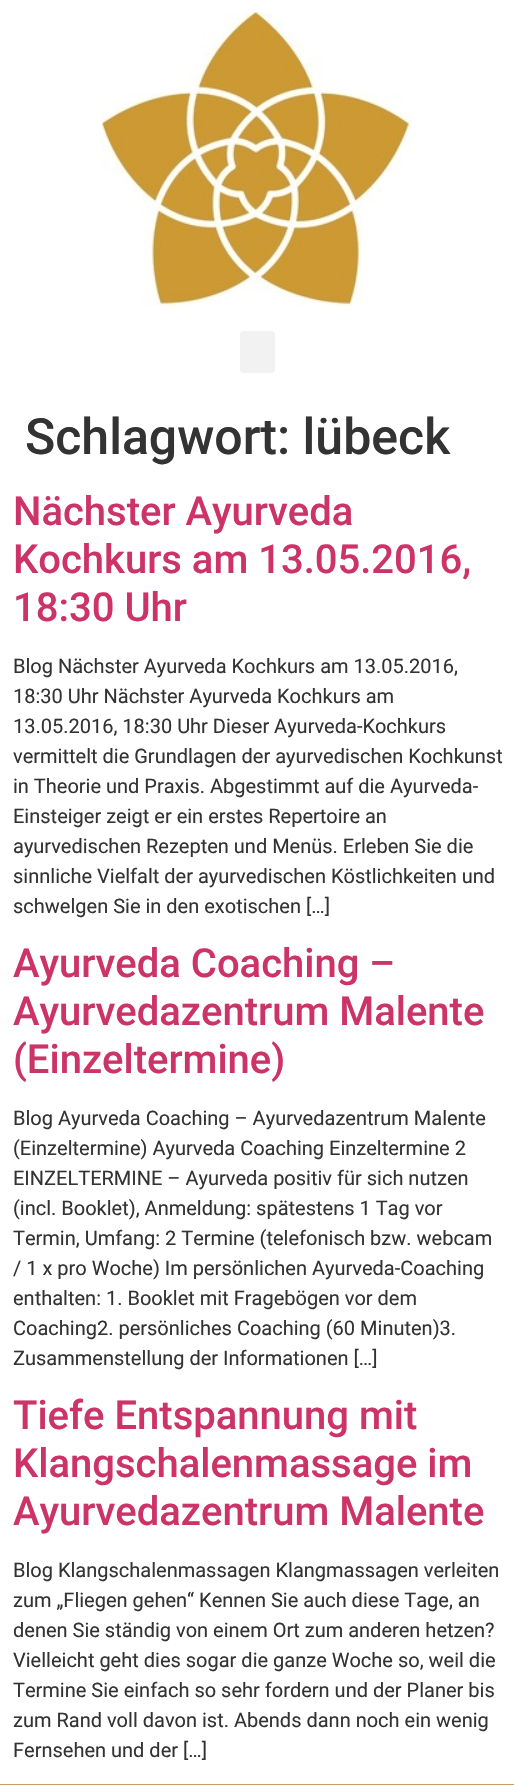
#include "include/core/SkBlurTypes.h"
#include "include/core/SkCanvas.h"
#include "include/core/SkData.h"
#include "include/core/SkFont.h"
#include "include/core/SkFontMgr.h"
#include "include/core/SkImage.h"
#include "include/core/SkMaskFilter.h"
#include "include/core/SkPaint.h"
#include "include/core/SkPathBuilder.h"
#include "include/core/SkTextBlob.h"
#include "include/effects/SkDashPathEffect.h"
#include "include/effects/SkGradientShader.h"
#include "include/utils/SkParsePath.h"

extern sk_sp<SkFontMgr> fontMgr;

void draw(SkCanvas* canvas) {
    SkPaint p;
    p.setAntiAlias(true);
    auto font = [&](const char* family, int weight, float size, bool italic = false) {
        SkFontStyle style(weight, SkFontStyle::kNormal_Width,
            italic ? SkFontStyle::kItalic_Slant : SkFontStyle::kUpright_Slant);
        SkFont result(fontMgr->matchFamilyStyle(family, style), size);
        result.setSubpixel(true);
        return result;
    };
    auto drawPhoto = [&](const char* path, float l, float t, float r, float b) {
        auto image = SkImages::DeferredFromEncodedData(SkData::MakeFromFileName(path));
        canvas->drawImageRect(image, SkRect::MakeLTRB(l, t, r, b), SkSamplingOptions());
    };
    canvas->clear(0xFFFFFFFF);
    drawPhoto("media/1.png", 102, 12, 412, 307);
    p.setColor(0xFFF2F2F2);
    canvas->drawRoundRect(SkRect::MakeLTRB(240, 331, 275, 373), 4, 4, p);
    auto font1 = font("Roboto", 500, 50);
    p.setColor(0xFF333333);
    canvas->drawString("Schlagwort: lübeck", 25, 454, font1, p);
    auto font2 = font("Roboto", 500, 40);
    p.setColor(0xFFCC3366);
    {
        const struct { const char* s; float x, y; } items[] = {
            {"Nächster Ayurveda", 13, 525},
            {"Kochkurs am 13.05.2016,", 13, 573},
            {"18:30 Uhr", 13, 621},
        };
        for (auto [s, x, y] : items) {
            canvas->drawString(s, x, y, font2, p);
        }
    }
    auto font3 = font("Roboto", 400, 20);
    p.setColor(0xFF333333);
    {
        const struct { const char* s; float x, y; } items[] = {
            {"Blog Nächster Ayurveda Kochkurs am 13.05.2016,", 13, 673},
            {"18:30 Uhr Nächster Ayurveda Kochkurs am", 13, 703},
            {"13.05.2016, 18:30 Uhr Dieser Ayurveda-Kochkurs", 13, 733},
            {"vermittelt die Grundlagen der ayurvedischen Kochkunst", 13, 763},
            {"in Theorie und Praxis. Abgestimmt auf die Ayurveda-", 13, 793},
            {"Einsteiger zeigt er ein erstes Repertoire an", 13, 823},
            {"ayurvedischen Rezepten und Menüs. Erleben Sie die", 13, 853},
            {"sinnliche Vielfalt der ayurvedischen Köstlichkeiten und", 13, 883},
            {"schwelgen Sie in den exotischen […]", 13, 913},
        };
        for (auto [s, x, y] : items) {
            canvas->drawString(s, x, y, font3, p);
        }
    }
    p.setColor(0xFFCC3366);
    {
        const struct { const char* s; float x, y; } items[] = {
            {"Ayurveda Coaching –", 13, 977},
            {"Ayurvedazentrum Malente", 13, 1025},
            {"(Einzeltermine)", 13, 1073},
        };
        for (auto [s, x, y] : items) {
            canvas->drawString(s, x, y, font2, p);
        }
    }
    p.setColor(0xFF333333);
    {
        const struct { const char* s; float x, y; } items[] = {
            {"Blog Ayurveda Coaching – Ayurvedazentrum Malente", 13, 1125},
            {"(Einzeltermine) Ayurveda Coaching Einzeltermine 2", 13, 1155},
            {"EINZELTERMINE – Ayurveda positiv für sich nutzen", 13, 1185},
            {"(incl. Booklet), Anmeldung: spätestens 1 Tag vor", 13, 1215},
            {"Termin, Umfang: 2 Termine (telefonisch bzw. webcam", 13, 1245},
            {"/ 1 x pro Woche) Im persönlichen Ayurveda-Coaching", 13, 1275},
            {"enthalten: 1. Booklet mit Fragebögen vor dem", 13, 1305},
            {"Coaching2. persönliches Coaching (60 Minuten)3.", 13, 1335},
            {"Zusammenstellung der Informationen […]", 13, 1365},
        };
        for (auto [s, x, y] : items) {
            canvas->drawString(s, x, y, font3, p);
        }
    }
    p.setColor(0xFFCC3366);
    {
        const struct { const char* s; float x, y; } items[] = {
            {"Tiefe Entspannung mit", 13, 1429},
            {"Klangschalenmassage im", 13, 1477},
            {"Ayurvedazentrum Malente", 13, 1525},
        };
        for (auto [s, x, y] : items) {
            canvas->drawString(s, x, y, font2, p);
        }
    }
    p.setColor(0xFF333333);
    {
        const struct { const char* s; float x, y; } items[] = {
            {"Blog Klangschalenmassagen Klangmassagen verleiten", 13, 1577},
            {"zum „Fliegen gehen“ Kennen Sie auch diese Tage, an", 13, 1607},
            {"denen Sie ständig von einem Ort zum anderen hetzen?", 13, 1637},
            {"Vielleicht geht dies sogar die ganze Woche so, weil die", 13, 1667},
            {"Termine Sie einfach so sehr fordern und der Planer bis", 13, 1697},
            {"zum Rand voll davon ist. Abends dann noch ein wenig", 13, 1727},
            {"Fernsehen und der […]", 13, 1757},
        };
        for (auto [s, x, y] : items) {
            canvas->drawString(s, x, y, font3, p);
        }
    }
    p.setColor(0xFFC59D5F);
    canvas->drawRect(SkRect::MakeLTRB(0, 1784, 514, 1785), p);
}
